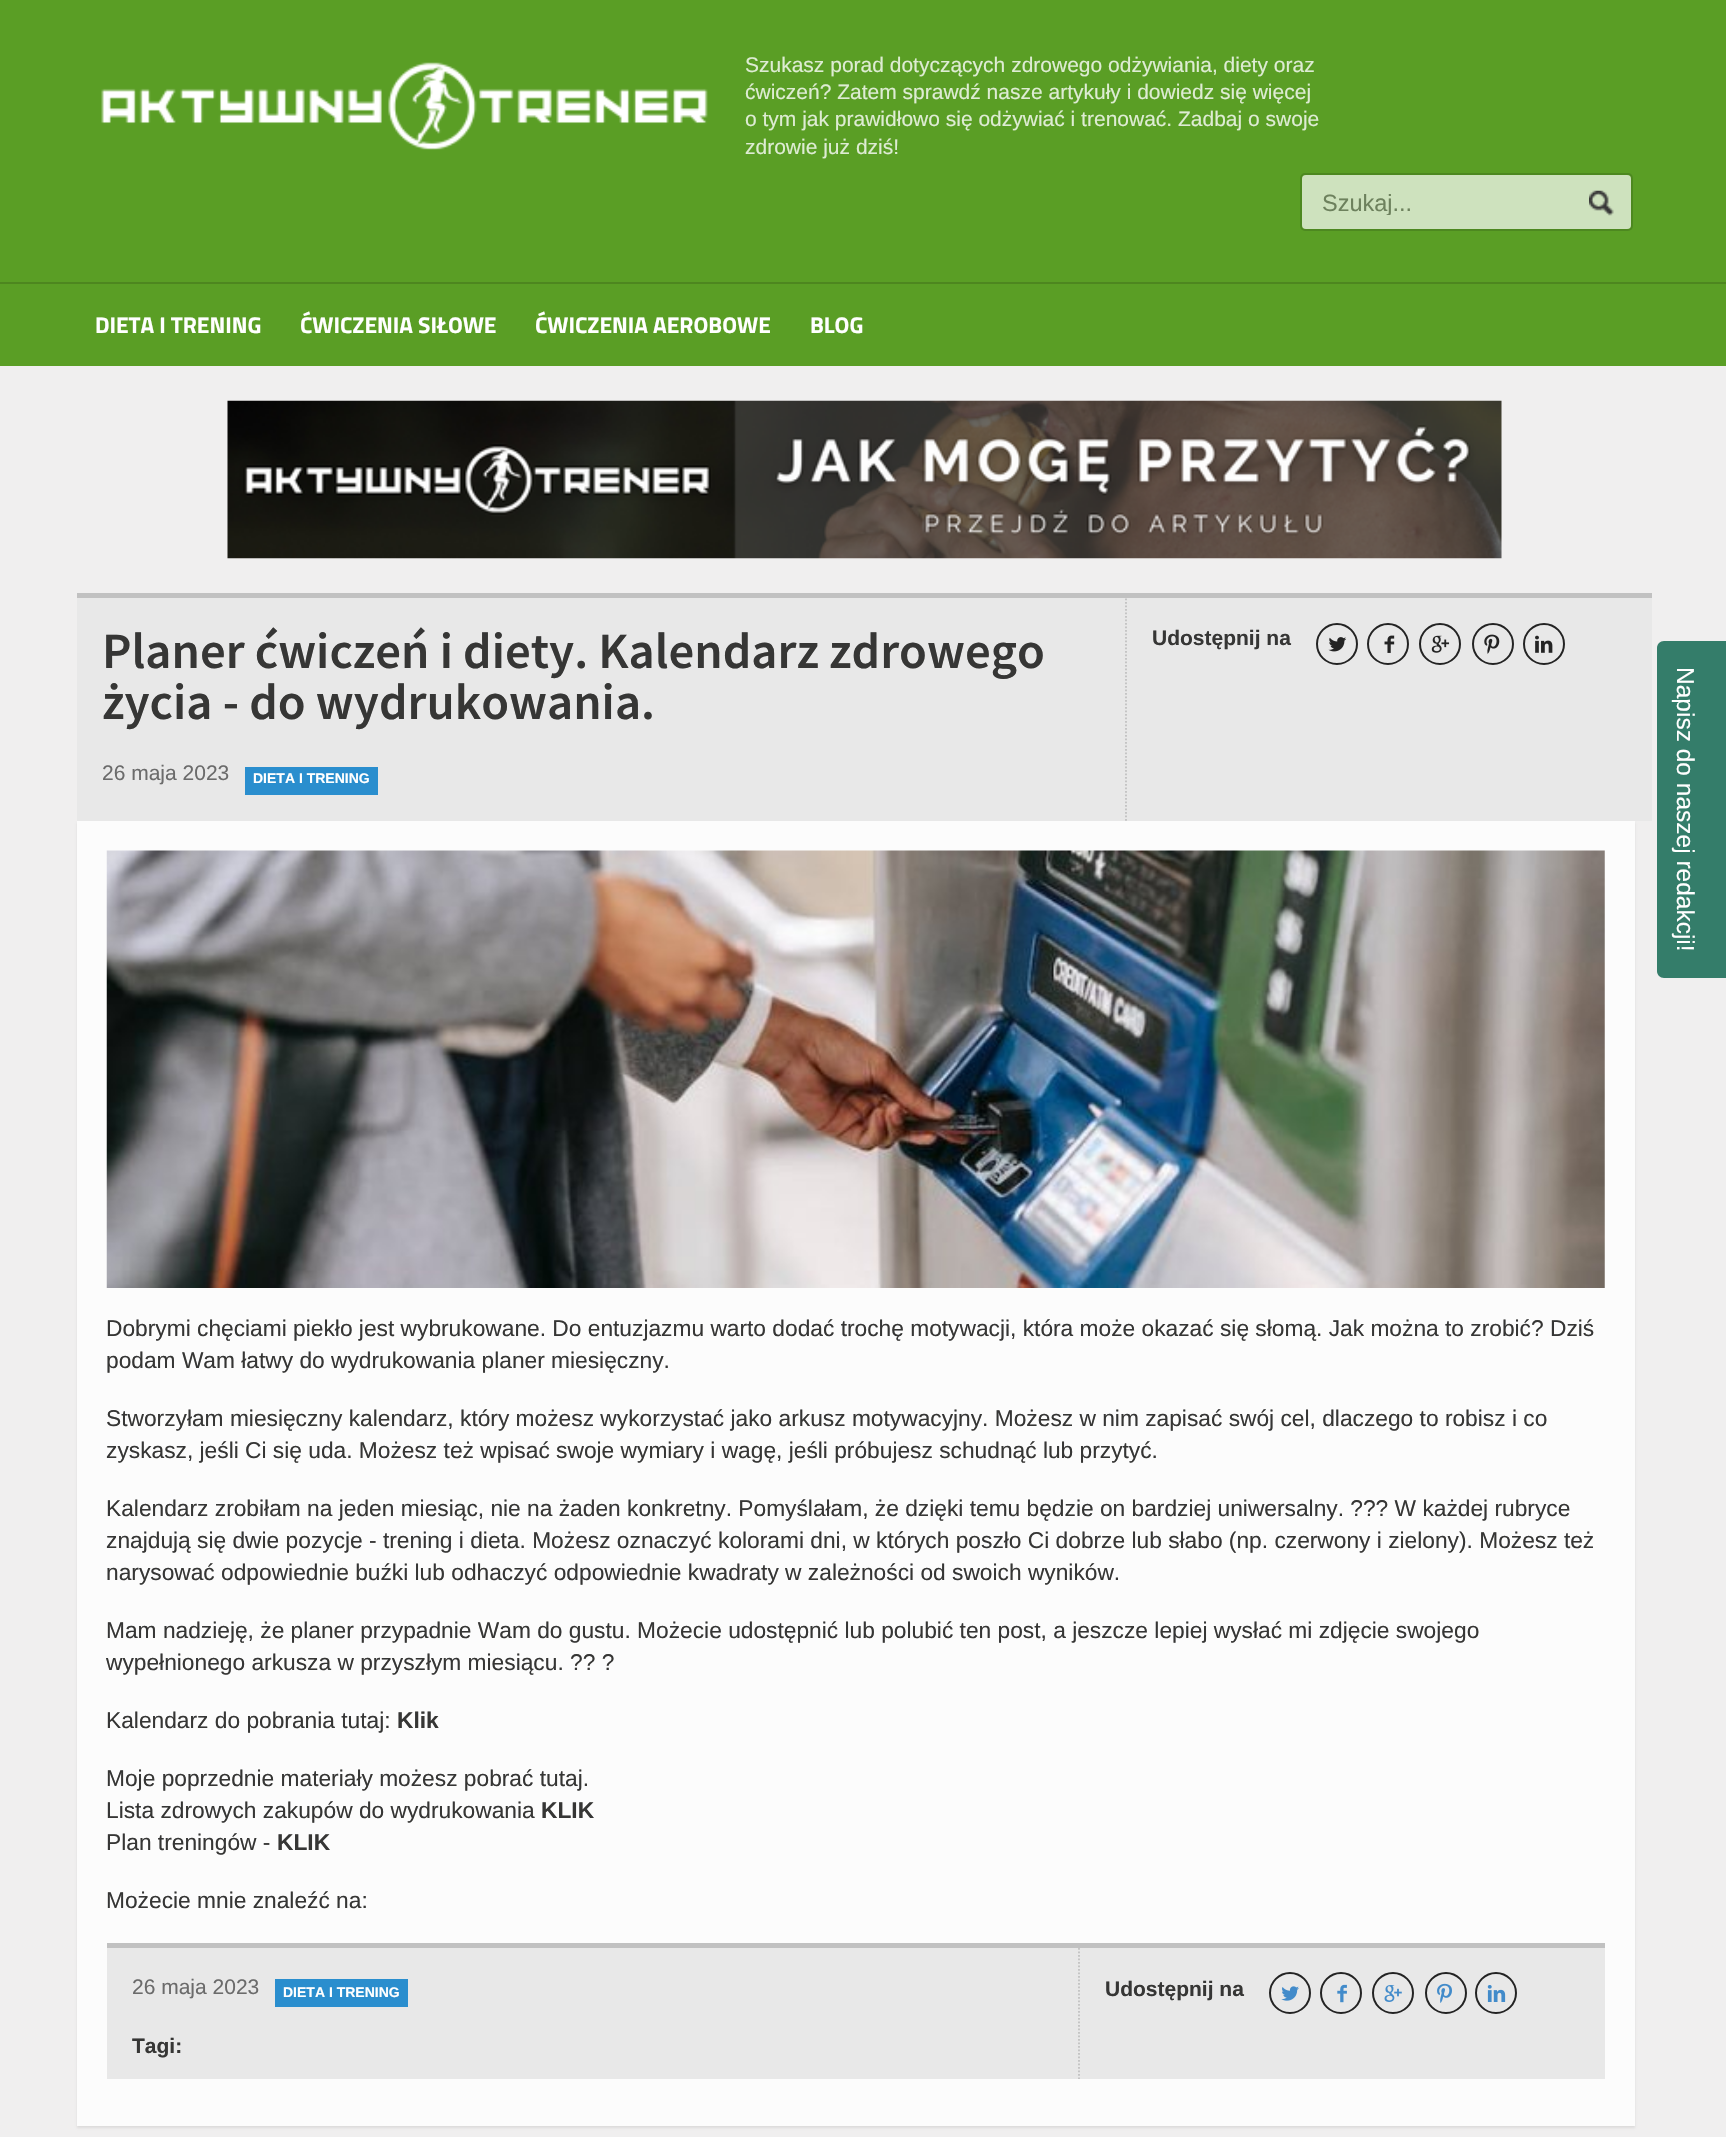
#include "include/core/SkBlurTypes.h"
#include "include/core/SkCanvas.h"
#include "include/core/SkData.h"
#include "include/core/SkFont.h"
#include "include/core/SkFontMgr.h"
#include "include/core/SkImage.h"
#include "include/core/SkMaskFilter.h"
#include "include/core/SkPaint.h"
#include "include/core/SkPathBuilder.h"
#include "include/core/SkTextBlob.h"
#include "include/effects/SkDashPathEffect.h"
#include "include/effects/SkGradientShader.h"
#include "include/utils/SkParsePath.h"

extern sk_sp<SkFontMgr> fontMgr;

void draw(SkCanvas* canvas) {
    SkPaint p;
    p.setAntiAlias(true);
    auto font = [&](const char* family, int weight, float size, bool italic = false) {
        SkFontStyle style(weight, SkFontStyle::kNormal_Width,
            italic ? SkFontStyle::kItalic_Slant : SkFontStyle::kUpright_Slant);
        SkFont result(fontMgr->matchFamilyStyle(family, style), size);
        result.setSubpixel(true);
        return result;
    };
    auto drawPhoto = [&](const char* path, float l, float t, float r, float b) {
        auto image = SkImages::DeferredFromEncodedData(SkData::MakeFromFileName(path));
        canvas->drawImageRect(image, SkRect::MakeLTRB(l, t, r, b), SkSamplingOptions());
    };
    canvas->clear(0xFFF0EFEF);
    p.setColor(0xFF5A9E25);
    canvas->drawRect(SkRect::MakeLTRB(0, 0, 1726, 366), p);
    drawPhoto("media/1.png", 101, 62, 708, 150);
    auto font1 = font("Liberation Sans", 400, 21);
    p.setColor(0xFFDEECD3);
    {
        const struct { const char* s; float x, y; } items[] = {
            {"Szukasz porad dotyczących zdrowego odżywiania, diety oraz", 745, 72},
            {"ćwiczeń? Zatem sprawdź nasze artykuły i dowiedz się więcej", 745, 99},
            {"o tym jak prawidłowo się odżywiać i trenować. Zadbaj o swoje", 745, 126},
            {"zdrowie już dziś!", 745, 154},
        };
        for (auto [s, x, y] : items) {
            canvas->drawString(s, x, y, font1, p);
        }
    }
    p.setStyle(SkPaint::kStroke_Style);
    p.setStrokeWidth(2);
    p.setColor(0xFF4D8820);
    canvas->drawRoundRect(SkRect::MakeLTRB(1301, 174, 1632, 230), 4, 4, p);
    p.setStyle(SkPaint::kFill_Style);
    p.setColor(0xFFCEE2BE);
    canvas->drawRoundRect(SkRect::MakeLTRB(1302, 175, 1631, 229), 4, 4, p);
    canvas->save();
    canvas->clipRect(SkRect::MakeLTRB(1323, 189, 1568, 215));
    auto font2 = font("Liberation Sans", 400, 23.5f);
    p.setColor(0xFF6D815D);
    canvas->drawString("Szukaj...", 1322, 211, font2, p);
    canvas->restore();
    drawPhoto("media/2.png", 1589, 190, 1614, 216);
    p.setColor(0xFF4D861F);
    canvas->drawRect(SkRect::MakeLTRB(0, 282, 1726, 284), p);
    auto font3 = font("Titillium Web", 700, 22.75f);
    p.setColor(0xFFFFFFFF);
    {
        const struct { const char* s; float x, y; } items[] = {
            {"DIETA I TRENING", 95, 333},
            {"ĆWICZENIA SIŁOWE", 300, 333},
            {"ĆWICZENIA AEROBOWE", 535, 333},
            {"BLOG", 810, 333},
        };
        for (auto [s, x, y] : items) {
            canvas->drawString(s, x, y, font3, p);
        }
    }
    drawPhoto("media/3.png", 227, 400, 1502, 559);
    p.setColor(0x14000000);
    p.setMaskFilter(SkMaskFilter::MakeBlur(kNormal_SkBlurStyle, 1));
    canvas->drawRect(SkRect::MakeLTRB(77, 823, 1635, 2128), p);
    p.setMaskFilter(nullptr);
    p.setColor(0xFFE8E8E8);
    canvas->drawRect(SkRect::MakeLTRB(77, 598, 1652, 821), p);
    p.setColor(0xFFC1C1C1);
    canvas->drawRect(SkRect::MakeLTRB(77, 593, 1652, 598), p);
    auto font4 = font("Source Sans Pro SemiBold", 600, 50.75f);
    p.setColor(0xFF363635);
    canvas->drawString("Planer ćwiczeń i diety. Kalendarz zdrowego", 102, 668, font4, p);
    canvas->drawString("życia - do wydrukowania.", 102, 719, font4, p);
    p.setStyle(SkPaint::kStroke_Style);
    p.setStrokeWidth(1.8f);
    p.setColor(0xFFC1C1C1);
    p.setPathEffect(SkDashPathEffect::Make({{1.75f, 1.75f}}, 0));
    canvas->drawPath(SkPathBuilder().moveTo(1126, 598.5f).lineTo(1126, 821).detach(), p);
    p.setPathEffect(nullptr);
    auto font5 = font("Liberation Sans", 700, 21);
    p.setStyle(SkPaint::kFill_Style);
    p.setColor(0xFF363635);
    canvas->drawString("Udostępnij na", 1152, 645, font5, p);
    p.setStyle(SkPaint::kStroke_Style);
    p.setStrokeWidth(2);
    p.setColor(0xFF232323);
    canvas->drawCircle(1337, 644, 20, p);
    drawPhoto("media/4.png", 1328, 637, 1347, 652);
    canvas->drawCircle(1388, 644, 20, p);
    drawPhoto("media/5.png", 1384, 635, 1395, 653);
    canvas->drawCircle(1440, 644, 20, p);
    drawPhoto("media/6.png", 1431, 635, 1450, 653);
    canvas->drawCircle(1493, 644, 20, p);
    drawPhoto("media/7.png", 1484, 634, 1500, 654);
    canvas->drawCircle(1544, 644, 20, p);
    drawPhoto("media/8.png", 1535, 635, 1553, 653);
    p.setStyle(SkPaint::kFill_Style);
    p.setColor(0xFF6B6B6B);
    canvas->drawString("26 maja 2023", 102, 780, font1, p);
    p.setColor(0xFF2A8ECE);
    canvas->drawRect(SkRect::MakeLTRB(245, 767, 378, 795), p);
    auto font6 = font("Liberation Sans", 700, 14);
    p.setColor(0xFFFFFFFF);
    canvas->drawString("DIETA I TRENING", 253, 783, font6, p);
    p.setColor(0xFFFCFCFC);
    canvas->drawRect(SkRect::MakeLTRB(77, 821, 1635, 2126), p);
    drawPhoto("media/9.png", 106, 850, 1605, 1288);
    auto font7 = font("Liberation Sans", 400, 22.75f);
    p.setColor(0xFF363635);
    {
        const struct { const char* s; float x, y; } items[] = {
            {"Dobrymi chęciami piekło jest wybrukowane. Do entuzjazmu warto dodać trochę motywacji, która może okazać się słomą. Jak można to zrobić? Dziś", 106, 1336},
            {"podam Wam łatwy do wydrukowania planer miesięczny.", 106, 1368},
            {"Stworzyłam miesięczny kalendarz, który możesz wykorzystać jako arkusz motywacyjny. Możesz w nim zapisać swój cel, dlaczego to robisz i co", 106, 1426},
            {"zyskasz, jeśli Ci się uda. Możesz też wpisać swoje wymiary i wagę, jeśli próbujesz schudnąć lub przytyć.", 106, 1458},
            {"Kalendarz zrobiłam na jeden miesiąc, nie na żaden konkretny. Pomyślałam, że dzięki temu będzie on bardziej uniwersalny. ?\077? W każdej rubryce", 106, 1516},
            {"znajdują się dwie pozycje - trening i dieta. Możesz oznaczyć kolorami dni, w których poszło Ci dobrze lub słabo (np. czerwony i zielony). Możesz też", 106, 1548},
            {"narysować odpowiednie buźki lub odhaczyć odpowiednie kwadraty w zależności od swoich wyników.", 106, 1580},
            {"Mam nadzieję, że planer przypadnie Wam do gustu. Możecie udostępnić lub polubić ten post, a jeszcze lepiej wysłać mi zdjęcie swojego", 106, 1638},
            {"wypełnionego arkusza w przyszłym miesiącu. ?\077 ?", 106, 1670},
            {"Kalendarz do pobrania tutaj:", 106, 1728},
        };
        for (auto [s, x, y] : items) {
            canvas->drawString(s, x, y, font7, p);
        }
    }
    auto font8 = font("Liberation Sans", 700, 22.75f);
    canvas->drawString("Klik", 397, 1728, font8, p);
    canvas->drawString("Moje poprzednie materiały możesz pobrać tutaj.", 106, 1786, font7, p);
    canvas->drawString("Lista zdrowych zakupów do wydrukowania", 106, 1818, font7, p);
    canvas->drawString("KLIK", 541, 1818, font8, p);
    canvas->drawString("Plan treningów -", 106, 1850, font7, p);
    canvas->drawString("KLIK", 277, 1850, font8, p);
    canvas->drawString("Możecie mnie znaleźć na:", 106, 1908, font7, p);
    p.setColor(0xFFE8E8E8);
    canvas->drawRect(SkRect::MakeLTRB(107, 1948, 1605, 2079), p);
    p.setColor(0xFFC1C1C1);
    canvas->drawRect(SkRect::MakeLTRB(107, 1943, 1605, 1948), p);
    p.setColor(0xFF6B6B6B);
    canvas->drawString("26 maja 2023", 132, 1994, font1, p);
    p.setColor(0xFF2A8ECE);
    canvas->drawRect(SkRect::MakeLTRB(275, 1979, 408, 2007), p);
    p.setColor(0xFFFFFFFF);
    canvas->drawString("DIETA I TRENING", 283, 1997, font6, p);
    p.setStyle(SkPaint::kStroke_Style);
    p.setStrokeWidth(1.8f);
    p.setColor(0xFFC1C1C1);
    p.setPathEffect(SkDashPathEffect::Make({{1.75f, 1.75f}}, 0));
    canvas->drawPath(SkPathBuilder().moveTo(1079, 1948).lineTo(1079, 2079).detach(), p);
    p.setPathEffect(nullptr);
    p.setStyle(SkPaint::kFill_Style);
    p.setColor(0xFF363635);
    canvas->drawString("Udostępnij na", 1105, 1996, font5, p);
    p.setStyle(SkPaint::kStroke_Style);
    p.setStrokeWidth(2);
    p.setColor(0xFF232323);
    canvas->drawCircle(1290, 1993, 20, p);
    drawPhoto("media/10.png", 1281, 1986, 1299, 2001);
    canvas->drawCircle(1341, 1993, 20, p);
    drawPhoto("media/11.png", 1337, 1984, 1347, 2003);
    canvas->drawCircle(1393, 1993, 20, p);
    drawPhoto("media/12.png", 1384, 1985, 1402, 2002);
    canvas->drawCircle(1446, 1993, 20, p);
    drawPhoto("media/13.png", 1437, 1983, 1452, 2003);
    canvas->drawCircle(1496, 1993, 20, p);
    drawPhoto("media/14.png", 1487, 1985, 1506, 2002);
    p.setStyle(SkPaint::kFill_Style);
    p.setColor(0xFF363635);
    canvas->drawString("Tagi:", 132, 2053, font5, p);
    p.setColor(0xFF347D6A);
    canvas->drawPath(SkPathBuilder().moveTo(1664, 641).lineTo(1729, 641).lineTo(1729, 978).lineTo(1664, 978).cubicTo(1660, 978, 1657, 975, 1657, 971).lineTo(1657, 648).cubicTo(1657, 644, 1660, 641, 1664, 641).close().detach(), p);
    auto font9 = font("Liberation Sans", 400, 24.5f);
    p.setColor(0xFFFFFFFF);
    canvas->save();
    canvas->rotate(90, 1677, 667);
    canvas->drawString("Napisz do naszej redakcji!", 1677, 667, font9, p);
    canvas->restore();
}
